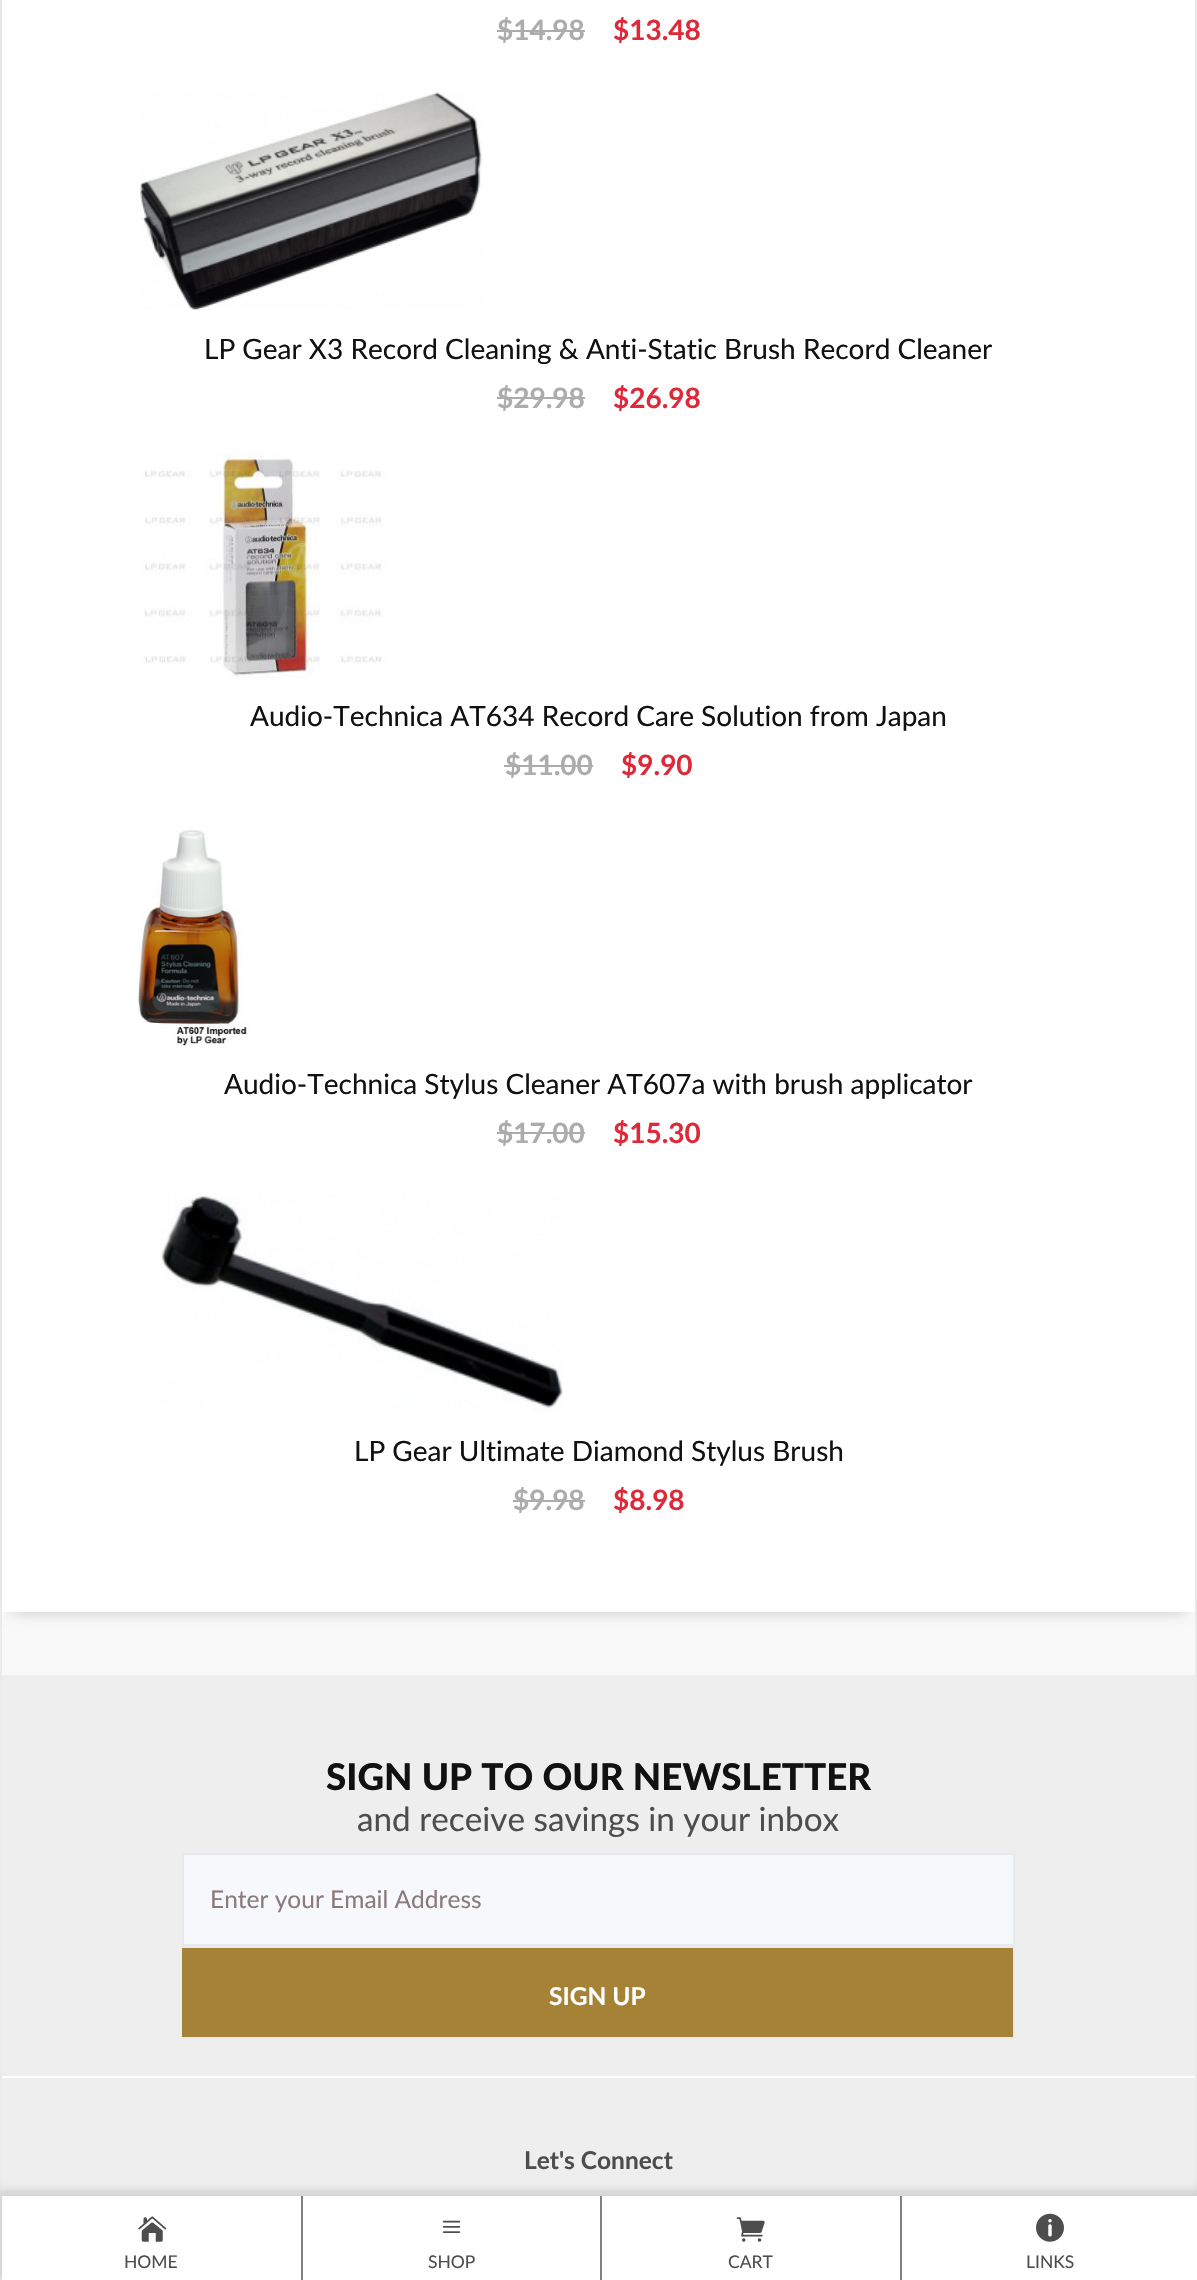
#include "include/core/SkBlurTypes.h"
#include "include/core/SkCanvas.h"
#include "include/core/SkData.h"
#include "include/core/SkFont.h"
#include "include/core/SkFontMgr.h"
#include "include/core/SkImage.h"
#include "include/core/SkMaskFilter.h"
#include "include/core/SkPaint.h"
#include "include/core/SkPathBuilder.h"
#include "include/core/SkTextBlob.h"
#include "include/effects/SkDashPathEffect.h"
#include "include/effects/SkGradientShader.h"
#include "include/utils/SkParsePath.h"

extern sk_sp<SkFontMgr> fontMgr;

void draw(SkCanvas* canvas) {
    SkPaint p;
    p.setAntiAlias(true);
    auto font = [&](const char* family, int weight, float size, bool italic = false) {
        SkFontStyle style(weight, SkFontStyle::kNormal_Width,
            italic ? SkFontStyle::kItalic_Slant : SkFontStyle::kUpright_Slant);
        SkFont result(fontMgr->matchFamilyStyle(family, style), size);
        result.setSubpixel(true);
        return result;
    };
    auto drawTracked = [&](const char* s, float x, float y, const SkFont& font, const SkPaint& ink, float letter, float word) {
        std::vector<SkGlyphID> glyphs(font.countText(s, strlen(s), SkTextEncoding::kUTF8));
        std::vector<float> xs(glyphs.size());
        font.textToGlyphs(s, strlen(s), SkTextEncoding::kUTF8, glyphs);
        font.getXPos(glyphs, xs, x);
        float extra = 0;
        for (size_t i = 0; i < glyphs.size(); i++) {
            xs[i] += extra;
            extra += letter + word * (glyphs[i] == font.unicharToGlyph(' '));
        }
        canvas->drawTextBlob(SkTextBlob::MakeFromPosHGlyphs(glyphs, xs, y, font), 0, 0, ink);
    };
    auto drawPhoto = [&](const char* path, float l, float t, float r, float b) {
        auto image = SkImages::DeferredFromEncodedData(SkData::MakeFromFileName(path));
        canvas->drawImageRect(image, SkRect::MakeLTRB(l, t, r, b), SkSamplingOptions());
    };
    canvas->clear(0xFFF9F9F9);
    p.setColor(0xFFEBEBEB);
    canvas->drawRect(SkRect::MakeLTRB(1195, 0, 1197, 2196), p);
    canvas->drawRect(SkRect::MakeLTRB(0, 0, 2, 2280), p);
    p.setColor(0x33000000);
    p.setMaskFilter(SkMaskFilter::MakeBlur(kNormal_SkBlurStyle, 7));
    canvas->drawRect(SkRect::MakeLTRB(12, -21, 1185, 1612), p);
    p.setMaskFilter(nullptr);
    p.setColor(0xFFFFFFFF);
    canvas->drawRect(SkRect::MakeLTRB(2, 0, 1195, 1612), p);
    auto font1 = font("Lato", 700, 28);
    p.setColor(0xFFACACAC);
    canvas->drawString("$14.98", 497, 40, font1, p);
    canvas->drawRect(SkRect::MakeLTRB(497, 30, 585, 32), p);
    p.setColor(0xFFDD293A);
    canvas->drawString("$13.48", 613, 40, font1, p);
    drawPhoto("media/1.png", 140, 92, 483, 310);
    auto font2 = font("Lato", 400, 28);
    p.setColor(0xFF111111);
    canvas->drawString("LP Gear X3 Record Cleaning & Anti-Static Brush Record Cleaner", 204, 359, font2, p);
    p.setColor(0xFFACACAC);
    canvas->drawString("$29.98", 497, 408, font1, p);
    canvas->drawRect(SkRect::MakeLTRB(497, 397, 585, 399), p);
    p.setColor(0xFFDD293A);
    canvas->drawString("$26.98", 613, 408, font1, p);
    drawPhoto("media/2.png", 143, 453, 385, 680);
    p.setColor(0xFF111111);
    canvas->drawString("Audio-Technica AT634 Record Care Solution from Japan", 250, 726, font2, p);
    p.setColor(0xFFACACAC);
    canvas->drawString("$11.00", 505, 775, font1, p);
    canvas->drawRect(SkRect::MakeLTRB(504, 765, 593, 767), p);
    p.setColor(0xFFDD293A);
    canvas->drawString("$9.90", 621, 775, font1, p);
    drawPhoto("media/3.png", 137, 830, 249, 1046);
    p.setColor(0xFF111111);
    canvas->drawString("Audio-Technica Stylus Cleaner AT607a with brush applicator", 224, 1094, font2, p);
    p.setColor(0xFFACACAC);
    canvas->drawString("$17.00", 497, 1143, font1, p);
    canvas->drawRect(SkRect::MakeLTRB(497, 1132, 585, 1134), p);
    p.setColor(0xFFDD293A);
    canvas->drawString("$15.30", 613, 1143, font1, p);
    drawPhoto("media/4.png", 160, 1193, 564, 1412);
    p.setColor(0xFF111111);
    canvas->drawString("LP Gear Ultimate Diamond Stylus Brush", 354, 1461, font2, p);
    p.setColor(0xFFACACAC);
    canvas->drawString("$9.98", 513, 1510, font1, p);
    canvas->drawRect(SkRect::MakeLTRB(513, 1500, 585, 1502), p);
    p.setColor(0xFFDD293A);
    canvas->drawString("$8.98", 613, 1510, font1, p);
    p.setColor(0xFFEEEEEE);
    canvas->drawRect(SkRect::MakeLTRB(2, 1675, 1195, 2196), p);
    auto font3 = font("Lato", 900, 36.75f);
    p.setColor(0xFF111111);
    drawTracked("SIGN UP TO OUR NEWSLETTER", 326, 1790, font3, p, 0, 0.5f);
    auto font4 = font("Lato", 400, 33.25f);
    p.setColor(0xFF4D4D4D);
    canvas->drawString("and receive savings in your inbox", 357, 1831, font4, p);
    p.setColor(0xFFF6F8FB);
    canvas->drawRect(SkRect::MakeLTRB(183, 1854, 1014, 1945), p);
    p.setStyle(SkPaint::kStroke_Style);
    p.setStrokeWidth(2);
    p.setColor(0xFFE6E9ED);
    canvas->drawRect(SkRect::MakeLTRB(183, 1854, 1014, 1945), p);
    auto font5 = font("Lato", 400, 24.5f);
    p.setStyle(SkPaint::kFill_Style);
    p.setColor(0xFF8A7B7B);
    canvas->drawString("Enter your Email Address", 210, 1908, font5, p);
    {
        const struct { float l, t, r, b; SkColor color; } items[] = {
            {182, 1948, 1013, 2037, 0xFFA58235},
            {182, 1946, 1015, 1948, 0xFFE6E9ED},
            {1013, 1946, 1015, 2039, 0xFFE6E9ED},
            {182, 2037, 1015, 2039, 0xFFE6E9ED},
        };
        for (auto [l, t, r, b, color] : items) {
            p.setColor(color);
            canvas->drawRect(SkRect::MakeLTRB(l, t, r, b), p);
        }
    }
    auto font6 = font("Lato", 700, 24.5f);
    p.setColor(0xFFFFFFFF);
    canvas->drawString("SIGN UP", 549, 2005, font6, p);
    canvas->drawRect(SkRect::MakeLTRB(2, 2076, 1195, 2078), p);
    p.setColor(0xFF4D4D4D);
    canvas->drawString("Let's Connect", 524, 2169, font6, p);
    p.setColor(0x1A000000);
    p.setMaskFilter(SkMaskFilter::MakeBlur(kNormal_SkBlurStyle, 3.5f));
    canvas->drawRect(SkRect::MakeLTRB(-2, 2189, 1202, 2280), p);
    p.setMaskFilter(nullptr);
    p.setColor(0xFFFFFFFF);
    canvas->drawRect(SkRect::MakeLTRB(2, 2196, 1197, 2280), p);
    drawPhoto("media/5.png", 138, 2216, 167, 2242);
    auto font7 = font("Lato", 400, 17.5f);
    p.setColor(0xFF4D4D4D);
    canvas->drawString("HOME", 124, 2268, font7, p);
    p.setColor(0xFF818181);
    canvas->drawRect(SkRect::MakeLTRB(301, 2196, 303, 2280), p);
    drawPhoto("media/6.png", 442, 2220, 461, 2233);
    p.setColor(0xFF4D4D4D);
    canvas->drawString("SHOP", 428, 2268, font7, p);
    p.setColor(0xFF818181);
    canvas->drawRect(SkRect::MakeLTRB(600, 2196, 602, 2280), p);
    drawPhoto("media/7.png", 736, 2217, 765, 2242);
    p.setColor(0xFF4D4D4D);
    canvas->drawString("CART", 728, 2268, font7, p);
    p.setColor(0xFF818181);
    canvas->drawRect(SkRect::MakeLTRB(900, 2196, 902, 2280), p);
    drawPhoto("media/8.png", 1036, 2213, 1064, 2242);
    p.setColor(0xFF4D4D4D);
    canvas->drawString("LINKS", 1026, 2268, font7, p);
}
